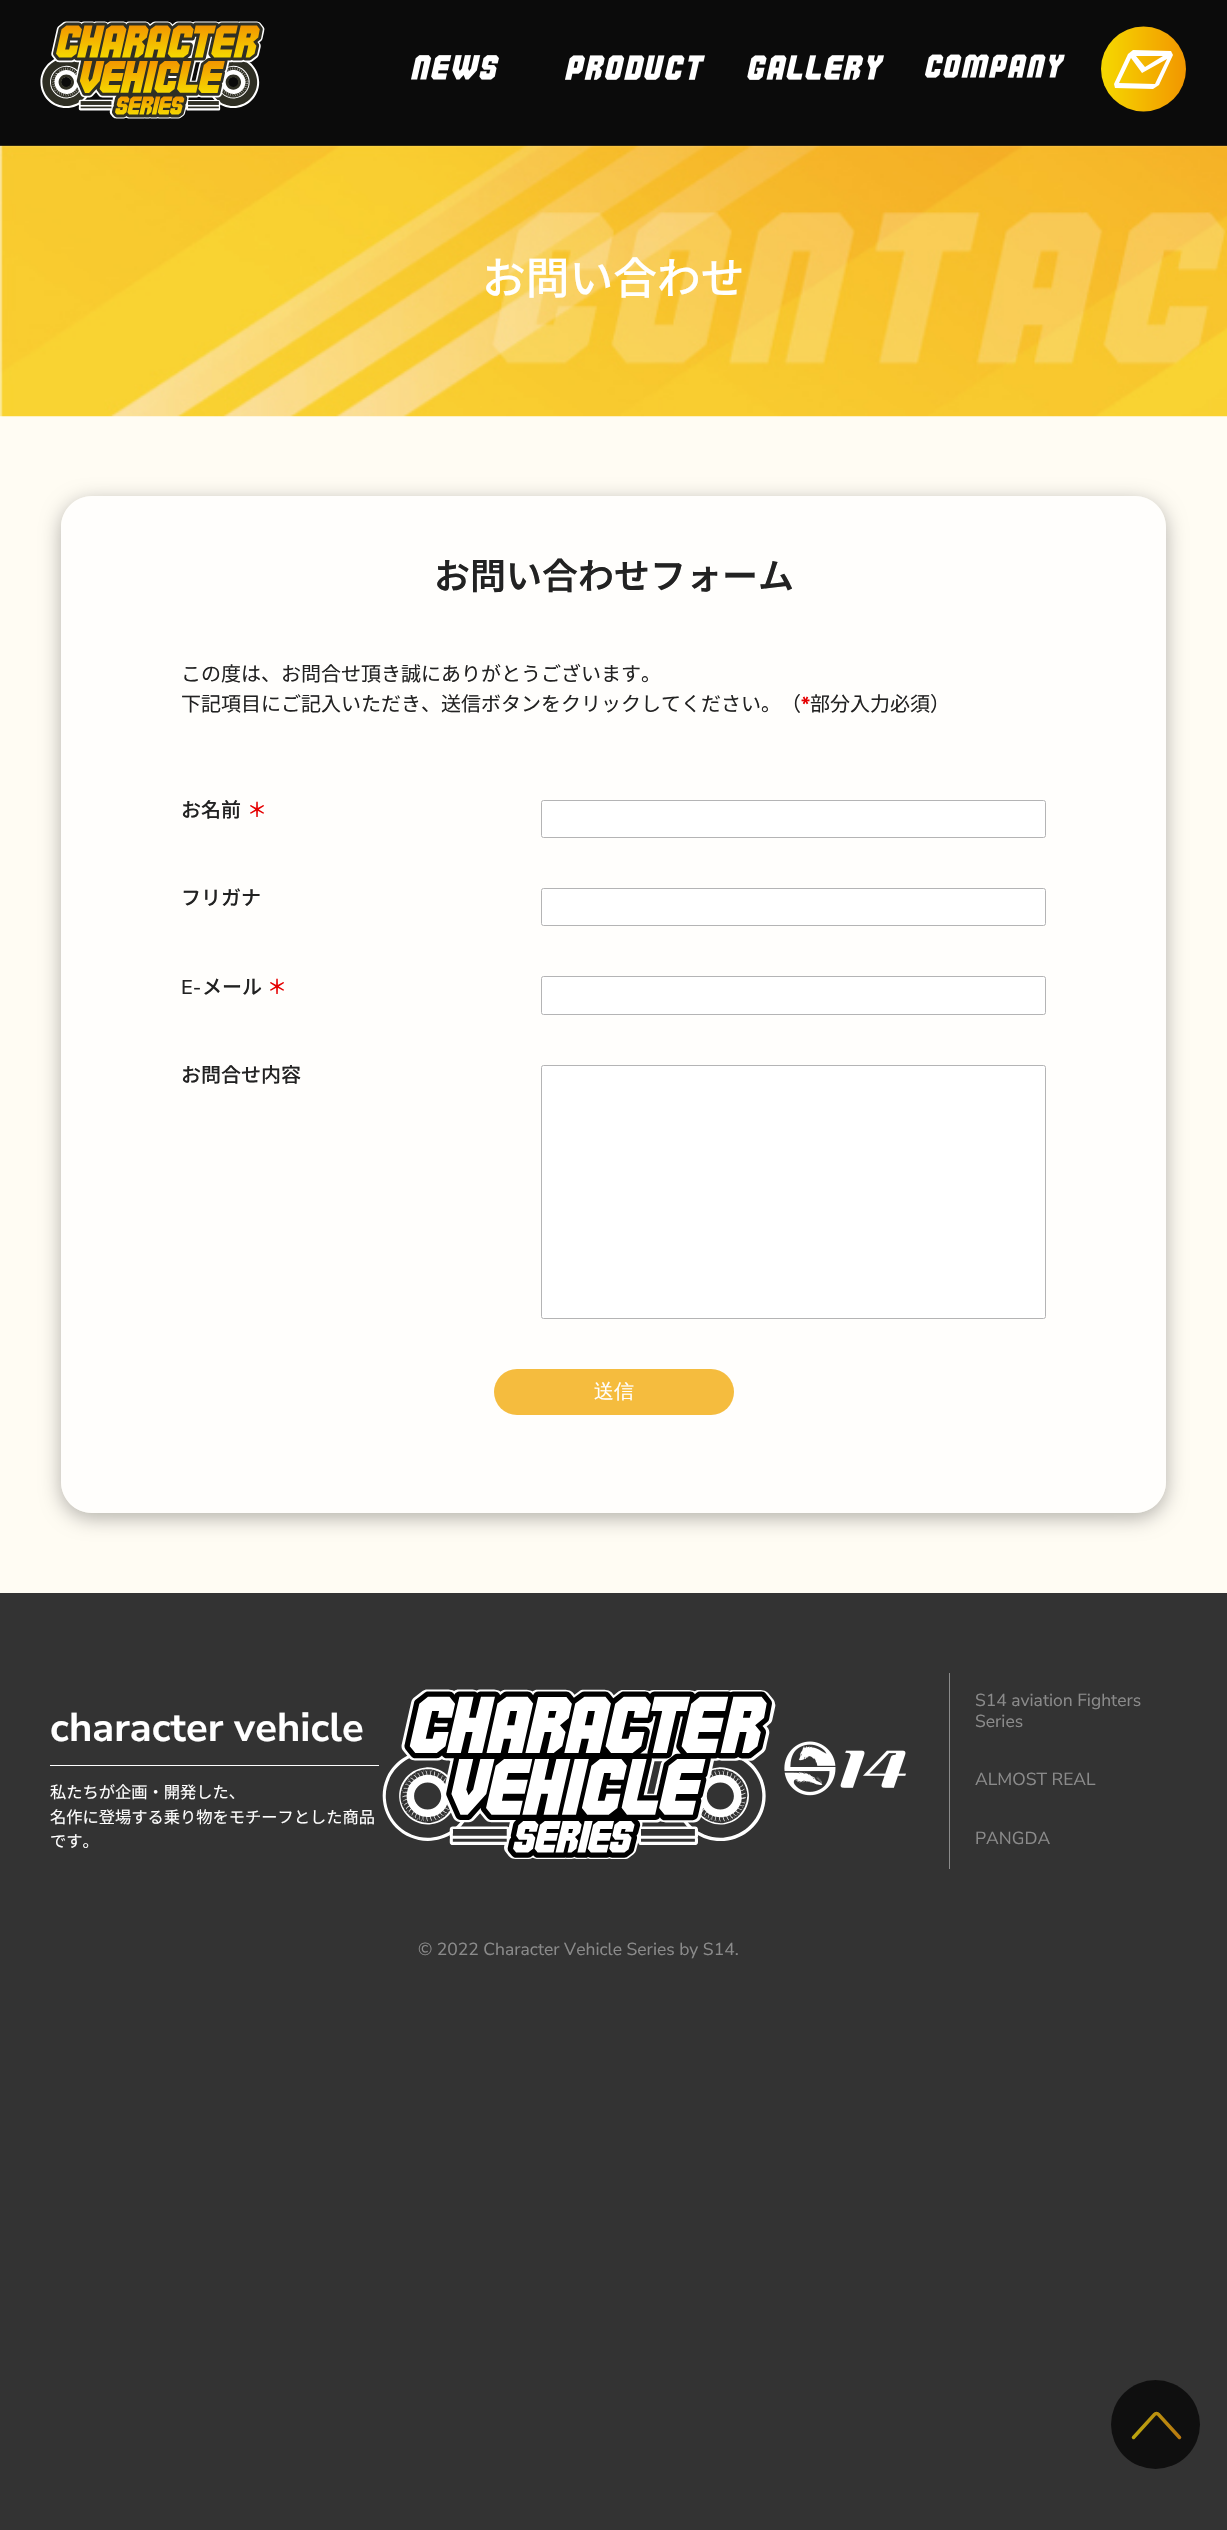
#include "include/core/SkBlurTypes.h"
#include "include/core/SkCanvas.h"
#include "include/core/SkData.h"
#include "include/core/SkFont.h"
#include "include/core/SkFontMgr.h"
#include "include/core/SkImage.h"
#include "include/core/SkMaskFilter.h"
#include "include/core/SkPaint.h"
#include "include/core/SkPathBuilder.h"
#include "include/core/SkTextBlob.h"
#include "include/effects/SkDashPathEffect.h"
#include "include/effects/SkGradientShader.h"
#include "include/utils/SkParsePath.h"

extern sk_sp<SkFontMgr> fontMgr;

void draw(SkCanvas* canvas) {
    SkPaint p;
    p.setAntiAlias(true);
    auto font = [&](const char* family, int weight, float size, bool italic = false) {
        SkFontStyle style(weight, SkFontStyle::kNormal_Width,
            italic ? SkFontStyle::kItalic_Slant : SkFontStyle::kUpright_Slant);
        SkFont result(fontMgr->matchFamilyStyle(family, style), size);
        result.setSubpixel(true);
        return result;
    };
    auto drawPhoto = [&](const char* path, float l, float t, float r, float b) {
        auto image = SkImages::DeferredFromEncodedData(SkData::MakeFromFileName(path));
        canvas->drawImageRect(image, SkRect::MakeLTRB(l, t, r, b), SkSamplingOptions());
    };
    canvas->clear(0xFF333333);
    p.setColor(0xFFFFFCF3);
    canvas->drawRect(SkRect::MakeLTRB(0, 416, 1227, 1593), p);
    drawPhoto("media/6.png", 0, 145, 1227, 417);
    p.setColor(0xCC000000);
    canvas->drawRect(SkRect::MakeLTRB(0, 0, 1227, 146), p);
    drawPhoto("media/1.png", 40, 21, 265, 119);
    drawPhoto("media/2.png", 411, 55, 499, 80);
    drawPhoto("media/3.png", 565, 55, 705, 80);
    drawPhoto("media/4.png", 747, 55, 884, 80);
    drawPhoto("media/5.png", 925, 54, 1065, 78);
    {
        const SkColor colors[] = {0xFFF4D400, 0xFFF5D600, 0xFFF29600};
        const float stops[] = {0, 0.04f, 1};
        const SkPoint ends[] = {{1101, 69}, {1186, 69}};
        p.setShader(SkGradientShader::MakeLinear(ends, colors, stops, 3, SkTileMode::kClamp));
        p.setAlpha(255);
    }
    canvas->drawCircle(1143.5f, 69, 42.5f, p);
    p.setShader(nullptr);
    p.setColor(0xFFFFFFFF);
    canvas->drawPath(SkPathBuilder().moveTo(1171, 51).lineTo(1133, 50).lineTo(1128, 54).lineTo(1114, 84).lineTo(1115, 88).lineTo(1153, 89).lineTo(1159, 85).lineTo(1173, 55).close().moveTo(1145, 67).lineTo(1136, 56).lineTo(1163, 56).close().moveTo(1167, 59).lineTo(1155, 84).lineTo(1119, 83).lineTo(1131, 58).lineTo(1142, 73).close().detach(), p);
    auto font1 = font("Noto Sans JP", 500, 43.75f);
    canvas->drawString("お問い合わせ", 482, 294, font1, p);
    canvas->save();
    canvas->clipPath(SkPathBuilder(SkPathFillType::kEvenOdd).moveTo(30, 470).lineTo(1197, 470).lineTo(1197, 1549).lineTo(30, 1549).close().moveTo(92, 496).lineTo(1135, 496).cubicTo(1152, 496, 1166, 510, 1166, 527).lineTo(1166, 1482).cubicTo(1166, 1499, 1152, 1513, 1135, 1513).lineTo(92, 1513).cubicTo(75, 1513, 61, 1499, 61, 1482).lineTo(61, 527).cubicTo(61, 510, 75, 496, 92, 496).close().detach(), true);
    p.setColor(0x4D000000);
    p.setMaskFilter(SkMaskFilter::MakeBlur(kNormal_SkBlurStyle, 10));
    canvas->drawRoundRect(SkRect::MakeLTRB(61, 501, 1166, 1518), 31, 31, p);
    p.setMaskFilter(nullptr);
    canvas->restore();
    p.setColor(0xB3FFFFFF);
    canvas->drawRoundRect(SkRect::MakeLTRB(61, 496, 1166, 1513), 31, 31, p);
    auto font2 = font("Noto Sans JP", 600, 36);
    p.setColor(0xFF222222);
    canvas->drawString("お問い合わせフォーム", 434, 589, font2, p);
    auto font3 = font("Noto Sans JP", 400, 20);
    canvas->drawString("この度は、お問合せ頂き誠にありがとうございます。", 181, 681, font3, p);
    canvas->drawString("下記項目にご記入いただき、送信ボタンをクリックしてください。（", 181, 711, font3, p);
    auto font4 = font("Nunito Sans", 700, 20);
    p.setColor(0xFFE50001);
    canvas->drawString("*", 801, 711, font4, p);
    p.setColor(0xFF222222);
    canvas->drawString("部分入力必須）", 810, 711, font3, p);
    auto font5 = font("Noto Sans JP", 500, 20);
    canvas->drawString("お名前", 181, 817, font5, p);
    p.setColor(0xFFE50001);
    canvas->drawString("＊", 247, 817, font5, p);
    p.setColor(0xFFFFFFFF);
    canvas->drawRoundRect(SkRect::MakeLTRB(541.5f, 800.5f, 1045.5f, 837.5f), 2, 2, p);
    p.setStyle(SkPaint::kStroke_Style);
    p.setStrokeWidth(1);
    p.setColor(0xFFB4B4B5);
    canvas->drawRoundRect(SkRect::MakeLTRB(541.5f, 800.5f, 1045.5f, 837.5f), 2, 2, p);
    p.setStyle(SkPaint::kFill_Style);
    p.setColor(0xFF222222);
    canvas->drawString("フリガナ", 181, 905, font5, p);
    p.setColor(0xFFFFFFFF);
    canvas->drawRoundRect(SkRect::MakeLTRB(541.5f, 888.5f, 1045.5f, 925.5f), 2, 2, p);
    p.setStyle(SkPaint::kStroke_Style);
    p.setColor(0xFFB4B4B5);
    canvas->drawRoundRect(SkRect::MakeLTRB(541.5f, 888.5f, 1045.5f, 925.5f), 2, 2, p);
    auto font6 = font("Nunito Sans", 500, 20);
    p.setStyle(SkPaint::kFill_Style);
    p.setColor(0xFF222222);
    canvas->drawString("E-", 181, 994, font6, p);
    canvas->drawString("メール", 202, 994, font5, p);
    p.setColor(0xFFE50001);
    canvas->drawString("＊", 267, 994, font5, p);
    p.setColor(0xFFFFFFFF);
    canvas->drawRoundRect(SkRect::MakeLTRB(541.5f, 976.5f, 1045.5f, 1014.5f), 2, 2, p);
    p.setStyle(SkPaint::kStroke_Style);
    p.setColor(0xFFB4B4B5);
    canvas->drawRoundRect(SkRect::MakeLTRB(541.5f, 976.5f, 1045.5f, 1014.5f), 2, 2, p);
    p.setStyle(SkPaint::kFill_Style);
    p.setColor(0xFF222222);
    canvas->drawString("お問合せ内容", 181, 1082, font5, p);
    p.setColor(0xFFFFFFFF);
    canvas->drawRoundRect(SkRect::MakeLTRB(541.5f, 1065.5f, 1045.5f, 1318.5f), 2, 2, p);
    p.setStyle(SkPaint::kStroke_Style);
    p.setColor(0xFFB4B4B5);
    canvas->drawRoundRect(SkRect::MakeLTRB(541.5f, 1065.5f, 1045.5f, 1318.5f), 2, 2, p);
    p.setStyle(SkPaint::kFill_Style);
    p.setColor(0xFFF5BC3E);
    canvas->drawRoundRect(SkRect::MakeLTRB(494, 1369, 734, 1415), 23, 23, p);
    auto font7 = font("WenQuanYi Zen Hei", 500, 20);
    p.setColor(0xFFFFFFFF);
    canvas->drawString("送信", 594, 1398, font7, p);
    canvas->drawRect(SkRect::MakeLTRB(50, 1765, 379, 1766), p);
    auto font8 = font("Nunito Sans", 700, 40);
    canvas->drawString("character vehicle", 50, 1741, font8, p);
    auto font9 = font("Noto Sans JP", 400, 16.25f);
    {
        const struct { const char* s; float x, y; } items[] = {
            {"私たちが企画・開発した、", 50, 1798},
            {"名作に登場する乗り物をモチーフとした商品", 50, 1823},
            {"です。", 50, 1847},
        };
        for (auto [s, x, y] : items) {
            canvas->drawString(s, x, y, font9, p);
        }
    }
    drawPhoto("media/7.png", 784, 1741, 906, 1796);
    p.setColor(0xFF8B8B8B);
    canvas->drawRect(SkRect::MakeLTRB(949, 1673, 950, 1869), p);
    auto font10 = font("Nunito Sans", 400, 17.5f);
    {
        const struct { const char* s; float x, y; } items[] = {
            {"S14 aviation Fighters", 975, 1706},
            {"Series", 975, 1727},
            {"ALMOST REAL", 975, 1785},
            {"PANGDA", 975, 1844},
        };
        for (auto [s, x, y] : items) {
            canvas->drawString(s, x, y, font10, p);
        }
    }
    drawPhoto("media/8.png", 382, 1689, 776, 1859);
    canvas->drawString("© 2022 Character Vehicle Series by S14.", 418, 1955, font10, p);
    p.setColor(0xFF0F0F0F);
    canvas->drawCircle(1155.5f, 2424.5f, 44.5f, p);
    p.setStyle(SkPaint::kStroke_Style);
    p.setStrokeWidth(3.5f);
    p.setStrokeCap(SkPaint::kRound_Cap);
    {
        const SkColor colors[] = {0xFFBAA40F, 0xFFBBA50F, 0xFFB9780F};
        const float stops[] = {0, 0.04f, 1};
        const SkPoint ends[] = {{1132, 2425}, {1181, 2425}};
        p.setShader(SkGradientShader::MakeLinear(ends, colors, stops, 3, SkTileMode::kClamp));
        p.setAlpha(255);
    }
    canvas->drawPath(SkPathBuilder().moveTo(1133.5f, 2437.5f).lineTo(1154.5f, 2414.5f).cubicTo(1155.5f, 2413, 1157.5f, 2413, 1158.5f, 2414.5f).lineTo(1179.5f, 2437.5f).detach(), p);
}
